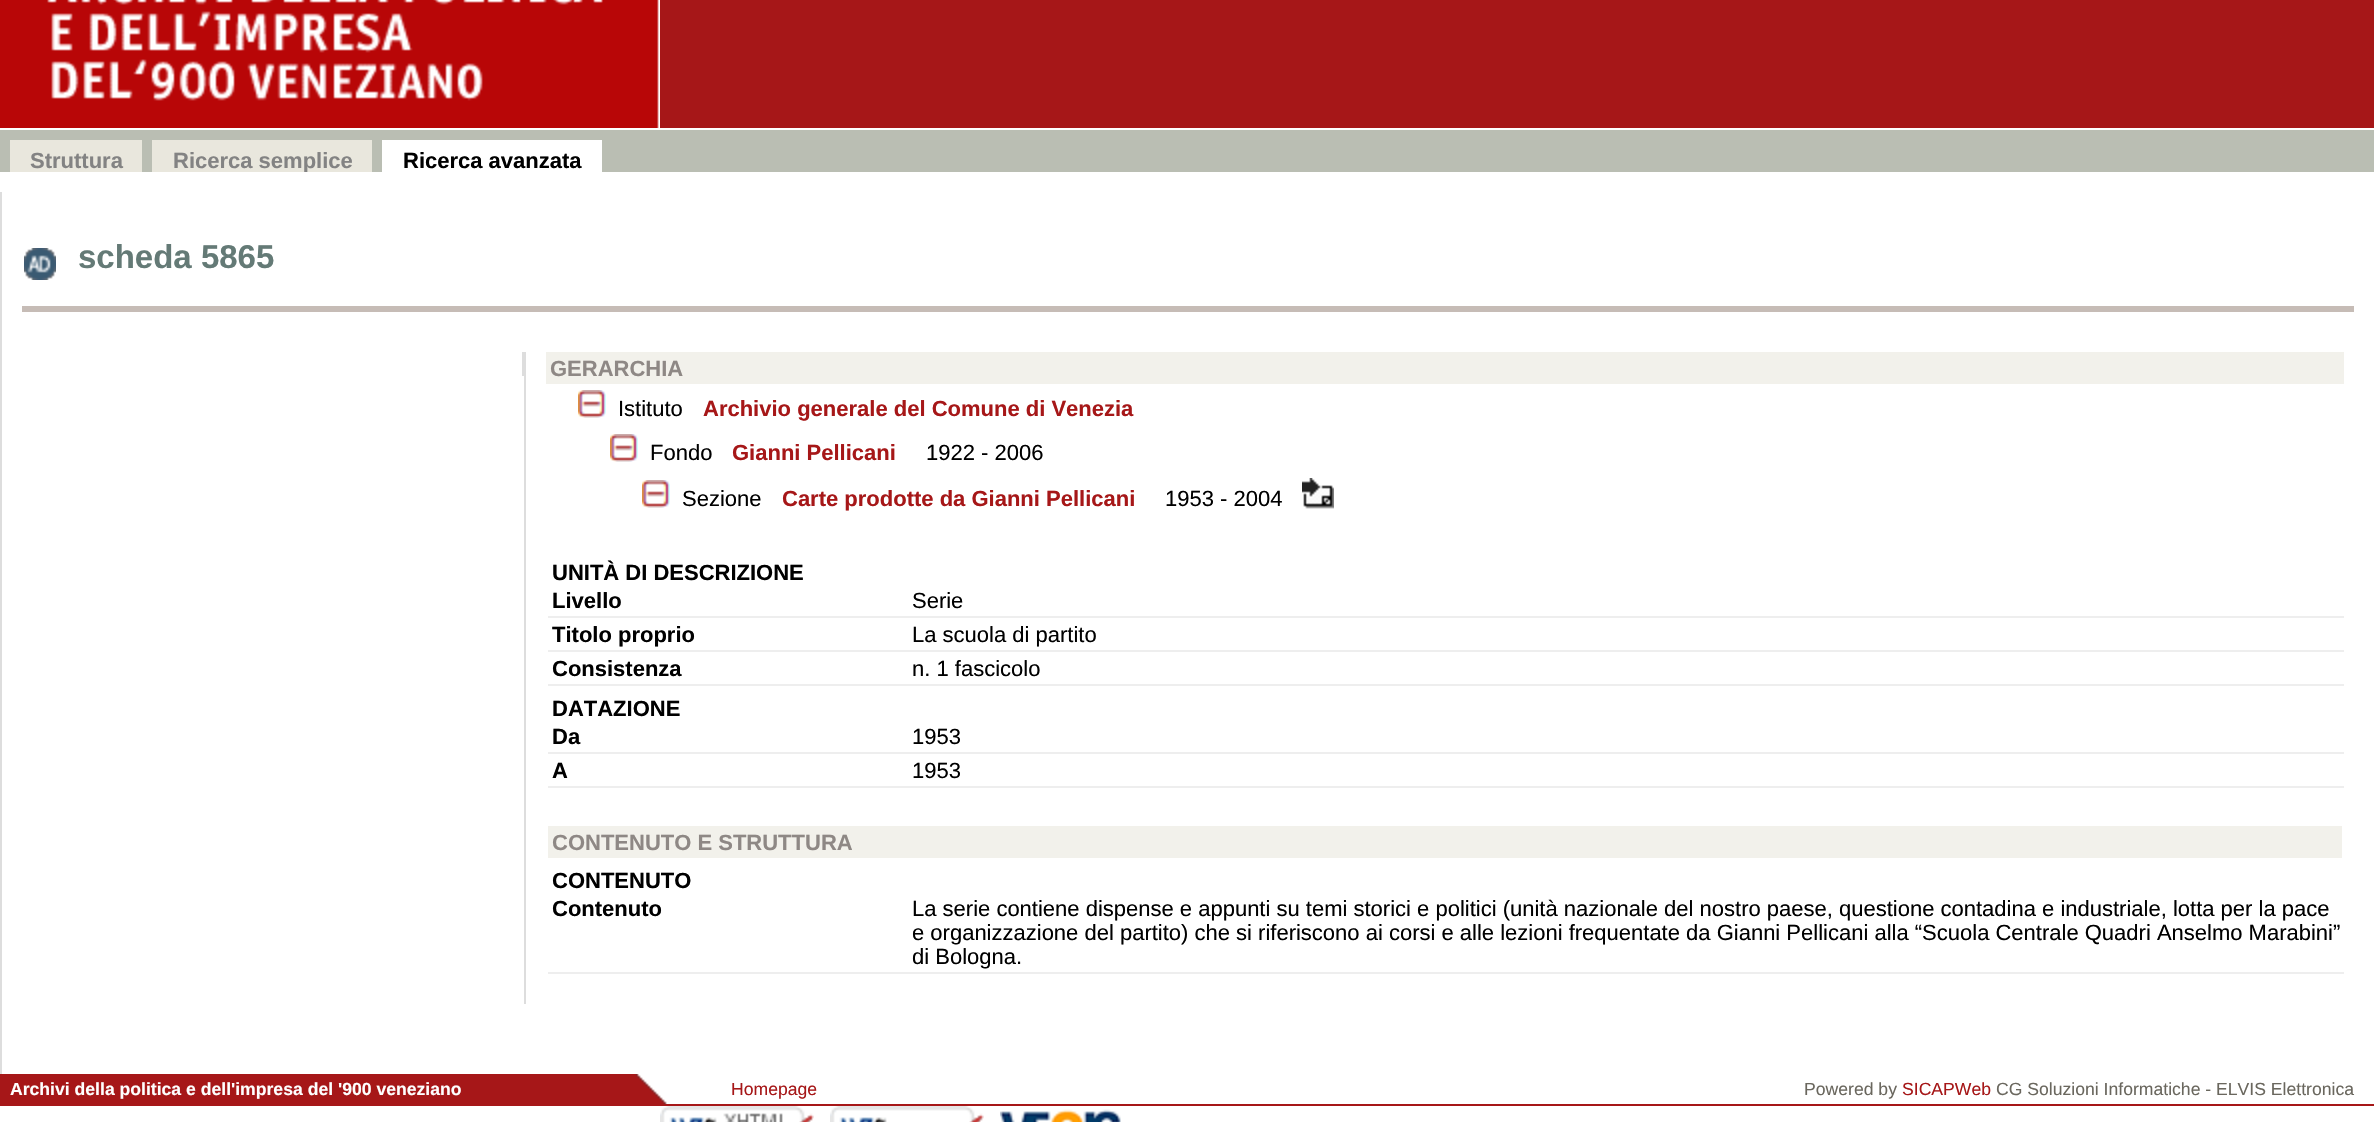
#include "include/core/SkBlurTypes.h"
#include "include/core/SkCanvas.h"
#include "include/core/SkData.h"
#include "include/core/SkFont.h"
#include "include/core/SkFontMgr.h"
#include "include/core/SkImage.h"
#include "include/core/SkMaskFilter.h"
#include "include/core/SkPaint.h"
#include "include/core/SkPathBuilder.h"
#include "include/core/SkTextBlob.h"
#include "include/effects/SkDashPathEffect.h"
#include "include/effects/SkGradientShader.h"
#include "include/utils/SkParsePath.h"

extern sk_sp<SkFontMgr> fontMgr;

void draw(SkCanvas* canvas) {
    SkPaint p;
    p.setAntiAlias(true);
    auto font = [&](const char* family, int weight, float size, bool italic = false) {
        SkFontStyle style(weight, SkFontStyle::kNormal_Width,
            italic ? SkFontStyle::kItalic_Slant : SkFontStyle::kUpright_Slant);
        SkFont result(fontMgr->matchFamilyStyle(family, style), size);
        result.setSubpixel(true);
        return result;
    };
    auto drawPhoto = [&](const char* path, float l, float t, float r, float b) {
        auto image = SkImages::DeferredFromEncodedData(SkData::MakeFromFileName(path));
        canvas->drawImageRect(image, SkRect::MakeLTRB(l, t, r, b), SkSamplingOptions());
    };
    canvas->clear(0xFFFFFFFF);
    p.setColor(0xFFA61718);
    canvas->drawRect(SkRect::MakeLTRB(660, 0, 2374, 128), p);
    drawPhoto("media/1.png", 0, 0, 660, 128);
    p.setColor(0xFFBABEB3);
    canvas->drawRect(SkRect::MakeLTRB(0, 130, 2374, 172), p);
    p.setColor(0xFFE9E7DD);
    canvas->drawRect(SkRect::MakeLTRB(10, 140, 142, 172), p);
    auto font1 = font("Liberation Sans", 700, 22);
    p.setColor(0xFF838383);
    canvas->drawString("Struttura", 30, 168, font1, p);
    p.setColor(0xFFE9E7DD);
    canvas->drawRect(SkRect::MakeLTRB(152, 140, 372, 172), p);
    canvas->save();
    canvas->clipRect(SkRect::MakeLTRB(152, 140, 372, 172));
    p.setColor(0xFF838383);
    canvas->drawString("Ricerca semplice", 173, 168, font1, p);
    canvas->restore();
    p.setColor(0xFFFFFFFF);
    canvas->drawRect(SkRect::MakeLTRB(382, 140, 602, 172), p);
    p.setColor(0xFF000000);
    canvas->drawString("Ricerca avanzata", 403, 168, font1, p);
    p.setColor(0xFFDDDDDD);
    canvas->drawRect(SkRect::MakeLTRB(0, 192, 2, 1074), p);
    p.setColor(0xFFC6BCB6);
    canvas->drawRect(SkRect::MakeLTRB(22, 306, 2354, 312), p);
    drawPhoto("media/2.png", 24, 248, 56, 280);
    auto font2 = font("Liberation Sans", 700, 33);
    p.setColor(0xFF647A76);
    canvas->drawString("scheda 5865", 78, 268, font2, p);
    {
        const struct { float l, t, r, b; SkColor color; } items[] = {
            {522, 352, 524, 376, 0xFFDDDDDD},
            {524, 352, 526, 1004, 0xFFDDDDDD},
            {546, 352, 2344, 384, 0xFFF2F1EB},
        };
        for (auto [l, t, r, b, color] : items) {
            p.setColor(color);
            canvas->drawRect(SkRect::MakeLTRB(l, t, r, b), p);
        }
    }
    p.setColor(0xFF8E8885);
    canvas->drawString("GERARCHIA", 550, 376, font1, p);
    drawPhoto("media/3.png", 578, 390, 606, 418);
    auto font3 = font("Liberation Sans", 400, 22);
    p.setColor(0xFF000000);
    canvas->drawString("Istituto", 618, 416, font3, p);
    p.setColor(0xFFA61718);
    canvas->drawString("Archivio generale del Comune di Venezia", 703, 416, font1, p);
    drawPhoto("media/3.png", 610, 434, 638, 462);
    p.setColor(0xFF000000);
    canvas->drawString("Fondo", 650, 460, font3, p);
    p.setColor(0xFFA61718);
    canvas->drawString("Gianni Pellicani", 732, 460, font1, p);
    p.setColor(0xFF000000);
    canvas->drawString("1922 - 2006", 926, 460, font3, p);
    drawPhoto("media/3.png", 642, 480, 670, 508);
    canvas->drawString("Sezione", 682, 506, font3, p);
    p.setColor(0xFFA61718);
    canvas->drawString("Carte prodotte da Gianni Pellicani", 782, 506, font1, p);
    p.setColor(0xFF000000);
    canvas->drawString("1953 - 2004", 1165, 506, font3, p);
    drawPhoto("media/4.png", 1302, 478, 1334, 509);
    canvas->drawString("UNITÀ DI DESCRIZIONE", 552, 580, font1, p);
    canvas->drawString("Livello", 552, 608, font1, p);
    p.setColor(0xFFEEEEEE);
    canvas->drawRect(SkRect::MakeLTRB(548, 616, 2344, 618), p);
    p.setColor(0xFF000000);
    canvas->drawString("Serie", 912, 608, font3, p);
    canvas->drawString("Titolo proprio", 552, 642, font1, p);
    p.setColor(0xFFEEEEEE);
    canvas->drawRect(SkRect::MakeLTRB(548, 650, 2344, 652), p);
    p.setColor(0xFF000000);
    canvas->drawString("La scuola di partito", 912, 642, font3, p);
    canvas->drawString("Consistenza", 552, 676, font1, p);
    p.setColor(0xFFEEEEEE);
    canvas->drawRect(SkRect::MakeLTRB(548, 684, 2344, 686), p);
    p.setColor(0xFF000000);
    canvas->drawString("n. 1 fascicolo", 912, 676, font3, p);
    canvas->drawString("DATAZIONE", 552, 716, font1, p);
    canvas->drawString("Da", 552, 744, font1, p);
    p.setColor(0xFFEEEEEE);
    canvas->drawRect(SkRect::MakeLTRB(548, 752, 2344, 754), p);
    p.setColor(0xFF000000);
    canvas->drawString("1953", 912, 744, font3, p);
    canvas->drawString("A", 552, 778, font1, p);
    p.setColor(0xFFEEEEEE);
    canvas->drawRect(SkRect::MakeLTRB(548, 786, 2344, 788), p);
    p.setColor(0xFF000000);
    canvas->drawString("1953", 912, 778, font3, p);
    p.setColor(0xFFF2F1EB);
    canvas->drawRect(SkRect::MakeLTRB(548, 826, 2342, 858), p);
    p.setColor(0xFF8E8885);
    canvas->drawString("CONTENUTO E STRUTTURA", 552, 850, font1, p);
    p.setColor(0xFF000000);
    canvas->drawString("CONTENUTO", 552, 888, font1, p);
    canvas->drawString("Contenuto", 552, 916, font1, p);
    p.setColor(0xFFEEEEEE);
    canvas->drawRect(SkRect::MakeLTRB(548, 972, 2344, 974), p);
    p.setColor(0xFF000000);
    {
        const struct { const char* s; float x, y; } items[] = {
            {"La serie contiene dispense e appunti su temi storici e politici (unità nazionale del nostro paese, questione contadina e industriale, lotta per la pace", 912, 916},
            {"e organizzazione del partito) che si riferiscono ai corsi e alle lezioni frequentate da Gianni Pellicani alla “Scuola Centrale Quadri Anselmo Marabini”", 912, 940},
            {"di Bologna.", 912, 964},
        };
        for (auto [s, x, y] : items) {
            canvas->drawString(s, x, y, font3, p);
        }
    }
    p.setColor(0xFFA61718);
    canvas->drawRect(SkRect::MakeLTRB(0, 1104, 2374, 1106), p);
    canvas->drawRect(SkRect::MakeLTRB(0, 1074, 462, 1104), p);
    auto font4 = font("Liberation Sans", 700, 17.6f);
    p.setColor(0xFFFFFFFF);
    canvas->drawString("Archivi della politica e dell'impresa del '900 veneziano", 10, 1095, font4, p);
    drawPhoto("media/5.png", 462, 1074, 667, 1104);
    auto font5 = font("Liberation Sans", 400, 17.6f);
    p.setColor(0xFFA61718);
    canvas->drawString("Homepage", 731, 1095, font5, p);
    p.setColor(0xFF6A675E);
    canvas->drawString("Powered by", 1804, 1095, font5, p);
    p.setColor(0xFFA61718);
    canvas->drawString("SICAPWeb", 1902, 1095, font5, p);
    p.setColor(0xFF6A675E);
    canvas->drawString("CG Soluzioni Informatiche - ELVIS Elettronica", 1996, 1095, font5, p);
    drawPhoto("media/6.png", 660, 1106, 814, 1122);
    drawPhoto("media/7.png", 830, 1106, 984, 1122);
    drawPhoto("media/8.png", 1000, 1109, 1121, 1122);
}
